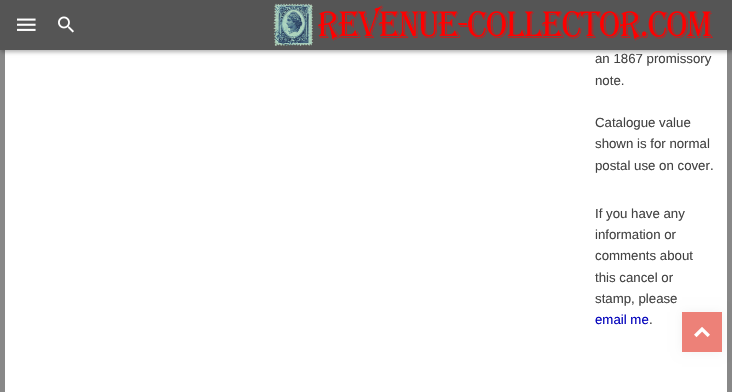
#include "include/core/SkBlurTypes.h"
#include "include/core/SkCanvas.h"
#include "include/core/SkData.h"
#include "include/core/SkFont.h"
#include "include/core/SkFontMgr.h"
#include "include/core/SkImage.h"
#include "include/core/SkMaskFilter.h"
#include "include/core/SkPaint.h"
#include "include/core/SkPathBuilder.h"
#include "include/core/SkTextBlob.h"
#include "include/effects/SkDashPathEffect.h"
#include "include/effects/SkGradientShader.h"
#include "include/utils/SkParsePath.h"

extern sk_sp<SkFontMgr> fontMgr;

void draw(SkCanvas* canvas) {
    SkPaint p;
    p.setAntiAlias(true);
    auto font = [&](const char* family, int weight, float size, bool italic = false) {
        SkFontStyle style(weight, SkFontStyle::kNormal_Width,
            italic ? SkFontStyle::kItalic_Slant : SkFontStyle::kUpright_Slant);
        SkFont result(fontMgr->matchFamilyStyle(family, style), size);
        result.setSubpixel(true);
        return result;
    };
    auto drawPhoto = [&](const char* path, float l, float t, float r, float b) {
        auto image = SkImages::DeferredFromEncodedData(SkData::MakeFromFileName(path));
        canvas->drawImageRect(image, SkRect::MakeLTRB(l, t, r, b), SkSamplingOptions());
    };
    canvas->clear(0xFF888888);
    p.setColor(0xFFFFFFFF);
    canvas->drawRect(SkRect::MakeLTRB(5, 50, 727, 392), p);
    p.setColor(0x4D000000);
    p.setMaskFilter(SkMaskFilter::MakeBlur(kNormal_SkBlurStyle, 2));
    canvas->drawRect(SkRect::MakeLTRB(1, 2, 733, 52), p);
    p.setMaskFilter(nullptr);
    p.setColor(0xFF555555);
    canvas->drawRect(SkRect::MakeLTRB(0, 0, 732, 50), p);
    drawPhoto("media/1.png", 17, 18, 36, 31);
    drawPhoto("media/2.png", 58, 16, 74, 33);
    drawPhoto("media/3.png", 273, 3, 713, 46);
    auto font1 = font("Liberation Sans", 400, 13.25f);
    p.setColor(0xFF434343);
    {
        const struct { const char* s; float x, y; } items[] = {
            {"an 1867 promissory", 595, 63},
            {"note.", 595, 85},
            {"Catalogue value", 595, 127},
            {"shown is for normal", 595, 148},
            {"postal use on cover.", 595, 170},
            {"If you have any", 595, 218},
            {"information or", 595, 239},
            {"comments about", 595, 260},
            {"this cancel or", 595, 282},
            {"stamp, please", 595, 303},
        };
        for (auto [s, x, y] : items) {
            canvas->drawString(s, x, y, font1, p);
        }
    }
    p.setColor(0xFF0000BB);
    canvas->drawString("email me", 595, 324, font1, p);
    p.setColor(0xFF434343);
    canvas->drawString(".", 649, 324, font1, p);
    p.setColor(0x0D000000);
    p.setMaskFilter(SkMaskFilter::MakeBlur(kNormal_SkBlurStyle, 5));
    canvas->drawRect(SkRect::MakeLTRB(682, 312, 722, 352), p);
    p.setMaskFilter(nullptr);
    p.setColor(0xFFED8178);
    canvas->drawRect(SkRect::MakeLTRB(682, 312, 722, 352), p);
    drawPhoto("media/4.png", 694, 327, 710, 338);
}
